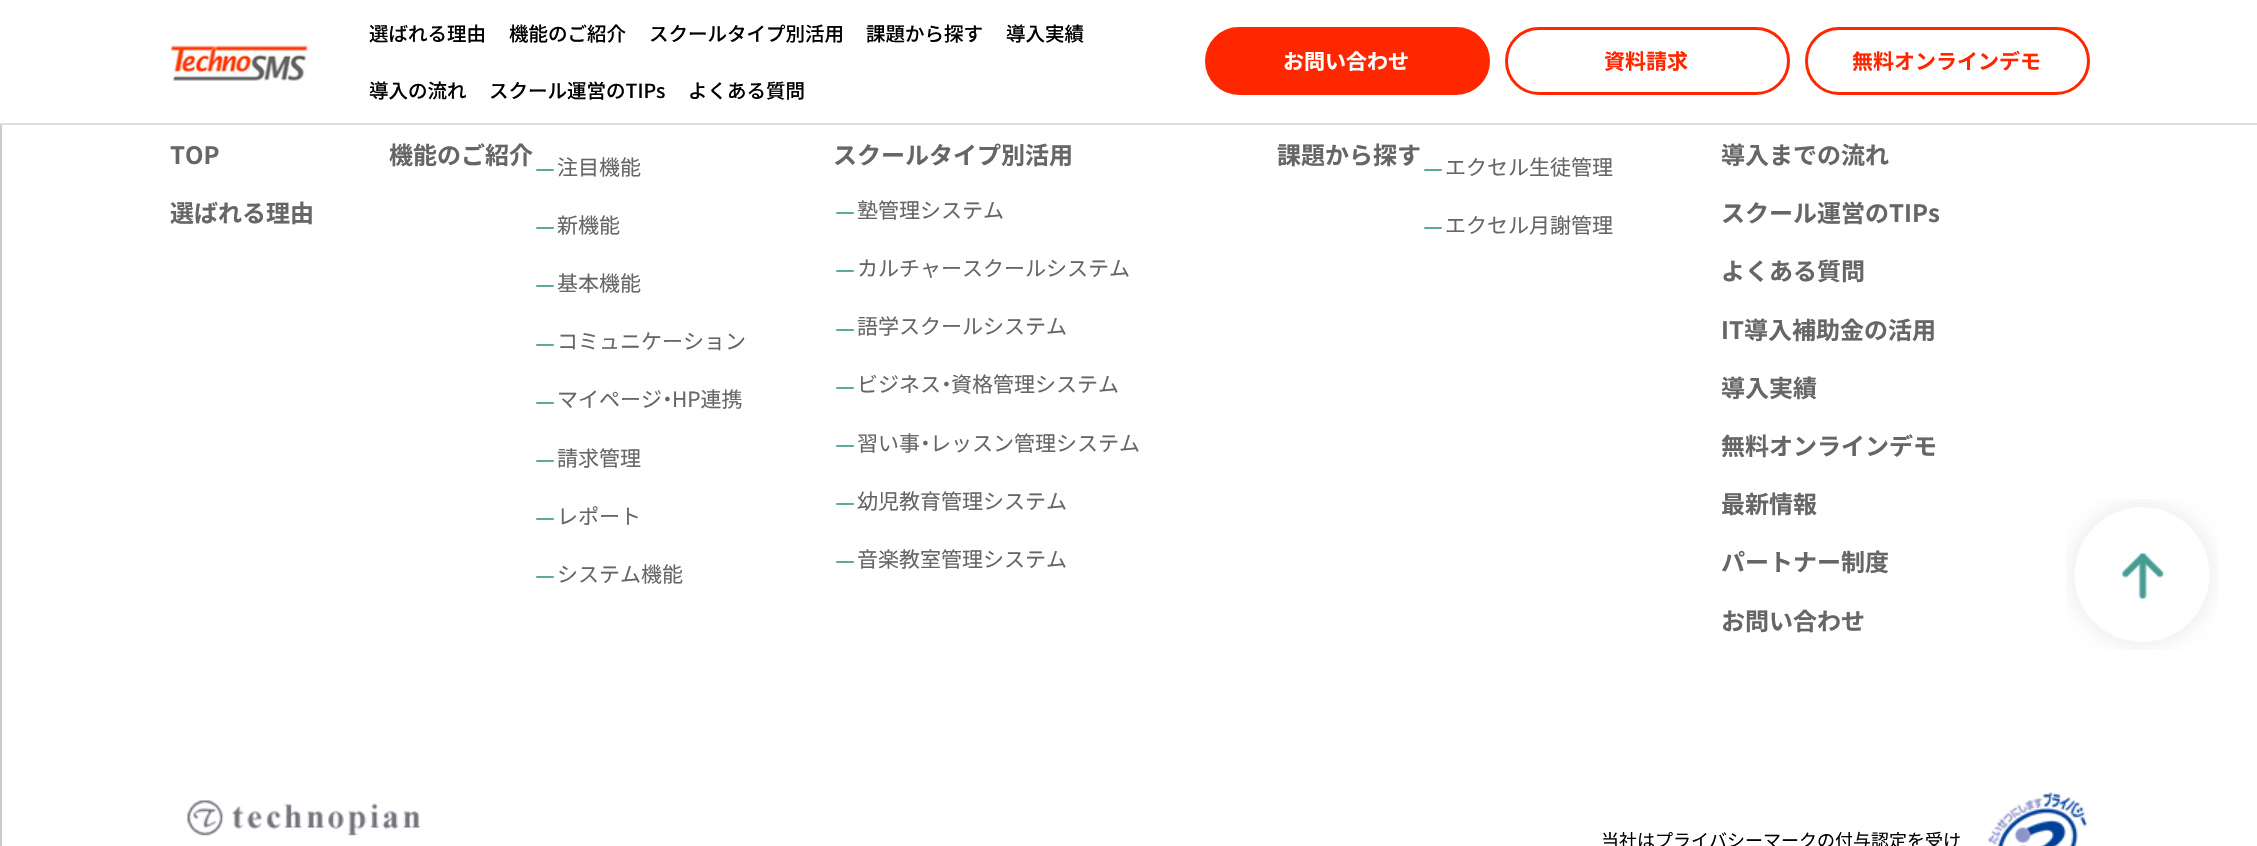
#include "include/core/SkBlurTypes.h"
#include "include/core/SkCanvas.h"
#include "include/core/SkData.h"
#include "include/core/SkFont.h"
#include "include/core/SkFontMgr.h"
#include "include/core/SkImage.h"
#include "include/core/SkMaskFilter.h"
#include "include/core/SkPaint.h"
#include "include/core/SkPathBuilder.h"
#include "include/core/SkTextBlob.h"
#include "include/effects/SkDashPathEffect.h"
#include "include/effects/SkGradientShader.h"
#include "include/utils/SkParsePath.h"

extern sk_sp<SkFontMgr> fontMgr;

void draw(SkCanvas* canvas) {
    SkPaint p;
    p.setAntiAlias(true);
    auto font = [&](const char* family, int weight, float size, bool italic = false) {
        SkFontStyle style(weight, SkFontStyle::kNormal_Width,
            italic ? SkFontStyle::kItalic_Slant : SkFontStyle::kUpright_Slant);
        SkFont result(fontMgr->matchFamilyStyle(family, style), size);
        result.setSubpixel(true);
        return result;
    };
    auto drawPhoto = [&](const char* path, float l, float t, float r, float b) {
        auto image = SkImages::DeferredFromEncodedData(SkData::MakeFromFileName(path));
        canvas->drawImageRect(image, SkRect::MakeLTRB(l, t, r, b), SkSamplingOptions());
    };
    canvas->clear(0xFFFFFFFF);
    p.setColor(0xFFDDDDDD);
    canvas->drawRect(SkRect::MakeLTRB(0, 123, 2257, 125), p);
    drawPhoto("media/1.png", 170, 45, 309, 81);
    auto font1 = font("Noto Sans JP", 500, 19.5f);
    p.setColor(0xFF000000);
    {
        const struct { const char* s; float x, y; } items[] = {
            {"選ばれる理由", 369, 41},
            {"機能のご紹介", 509, 41},
            {"スクールタイプ別活用", 649, 41},
            {"課題から探す", 866, 41},
            {"導入実績", 1006, 41},
            {"導入の流れ", 369, 98},
            {"スクール運営のTIPs", 489, 98},
            {"よくある質問", 688, 98},
        };
        for (auto [s, x, y] : items) {
            canvas->drawString(s, x, y, font1, p);
        }
    }
    p.setColor(0xFFFF2700);
    canvas->drawRoundRect(SkRect::MakeLTRB(1206.5f, 28.5f, 1488.5f, 93.5f), 32.5f, 32.5f, p);
    p.setStyle(SkPaint::kStroke_Style);
    p.setStrokeWidth(3);
    canvas->drawRoundRect(SkRect::MakeLTRB(1206.5f, 28.5f, 1488.5f, 93.5f), 32.5f, 32.5f, p);
    auto font2 = font("Noto Sans JP", 700, 21);
    p.setStyle(SkPaint::kFill_Style);
    p.setColor(0xFFFFFFFF);
    canvas->drawString("お問い合わせ", 1283, 69, font2, p);
    p.setStyle(SkPaint::kStroke_Style);
    p.setColor(0xFFFF2700);
    canvas->drawRoundRect(SkRect::MakeLTRB(1506.5f, 28.5f, 1788.5f, 93.5f), 32.5f, 32.5f, p);
    p.setStyle(SkPaint::kFill_Style);
    canvas->drawString("資料請求", 1604, 69, font2, p);
    p.setStyle(SkPaint::kStroke_Style);
    canvas->drawRoundRect(SkRect::MakeLTRB(1806.5f, 28.5f, 2088.5f, 93.5f), 32.5f, 32.5f, p);
    p.setStyle(SkPaint::kFill_Style);
    canvas->drawString("無料オンラインデモ", 1852, 69, font2, p);
    p.setColor(0xFFCCCCCC);
    canvas->drawRect(SkRect::MakeLTRB(0, 125, 2, 846), p);
    auto font3 = font("Noto Sans JP", 700, 24);
    p.setColor(0xFF666666);
    {
        const struct { const char* s; float x, y; } items[] = {
            {"TOP", 170, 164},
            {"選ばれる理由", 170, 222},
            {"機能のご紹介", 389, 164},
        };
        for (auto [s, x, y] : items) {
            canvas->drawString(s, x, y, font3, p);
        }
    }
    auto font4 = font("Noto Sans JP", 400, 24);
    p.setColor(0xFF459D92);
    canvas->drawString("－", 533, 179, font4, p);
    auto font5 = font("Noto Sans JP", 400, 21);
    p.setColor(0xFF666666);
    canvas->drawString("注目機能", 557, 175, font5, p);
    p.setColor(0xFF459D92);
    canvas->drawString("－", 533, 237, font4, p);
    p.setColor(0xFF666666);
    canvas->drawString("新機能", 557, 233, font5, p);
    p.setColor(0xFF459D92);
    canvas->drawString("－", 533, 295, font4, p);
    p.setColor(0xFF666666);
    canvas->drawString("基本機能", 557, 291, font5, p);
    p.setColor(0xFF459D92);
    canvas->drawString("－", 533, 354, font4, p);
    p.setColor(0xFF666666);
    canvas->drawString("コミュニケーション", 557, 349, font5, p);
    p.setColor(0xFF459D92);
    canvas->drawString("－", 533, 412, font4, p);
    p.setColor(0xFF666666);
    canvas->drawString("マイページ", 557, 407, font5, p);
    auto font6 = font("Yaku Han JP", 400, 21);
    canvas->drawString("・", 662, 407, font6, p);
    canvas->drawString("HP連携", 672, 407, font5, p);
    p.setColor(0xFF459D92);
    canvas->drawString("－", 533, 470, font4, p);
    p.setColor(0xFF666666);
    canvas->drawString("請求管理", 557, 466, font5, p);
    p.setColor(0xFF459D92);
    canvas->drawString("－", 533, 528, font4, p);
    p.setColor(0xFF666666);
    canvas->drawString("レポート", 557, 524, font5, p);
    p.setColor(0xFF459D92);
    canvas->drawString("－", 533, 586, font4, p);
    p.setColor(0xFF666666);
    canvas->drawString("システム機能", 557, 582, font5, p);
    canvas->drawString("スクールタイプ別活用", 833, 164, font3, p);
    p.setColor(0xFF459D92);
    canvas->drawString("－", 833, 222, font4, p);
    p.setColor(0xFF666666);
    canvas->drawString("塾管理システム", 857, 218, font5, p);
    p.setColor(0xFF459D92);
    canvas->drawString("－", 833, 280, font4, p);
    p.setColor(0xFF666666);
    canvas->drawString("カルチャースクールシステム", 857, 276, font5, p);
    p.setColor(0xFF459D92);
    canvas->drawString("－", 833, 339, font4, p);
    p.setColor(0xFF666666);
    canvas->drawString("語学スクールシステム", 857, 334, font5, p);
    p.setColor(0xFF459D92);
    canvas->drawString("－", 833, 397, font4, p);
    p.setColor(0xFF666666);
    canvas->drawString("ビジネス", 857, 392, font5, p);
    canvas->drawString("・", 941, 392, font6, p);
    canvas->drawString("資格管理システム", 951, 392, font5, p);
    p.setColor(0xFF459D92);
    canvas->drawString("－", 833, 455, font4, p);
    p.setColor(0xFF666666);
    canvas->drawString("習い事", 857, 451, font5, p);
    canvas->drawString("・", 920, 451, font6, p);
    canvas->drawString("レッスン管理システム", 930, 451, font5, p);
    p.setColor(0xFF459D92);
    canvas->drawString("－", 833, 513, font4, p);
    p.setColor(0xFF666666);
    canvas->drawString("幼児教育管理システム", 857, 509, font5, p);
    p.setColor(0xFF459D92);
    canvas->drawString("－", 833, 571, font4, p);
    p.setColor(0xFF666666);
    canvas->drawString("音楽教室管理システム", 857, 567, font5, p);
    canvas->drawString("課題から探す", 1277, 164, font3, p);
    p.setColor(0xFF459D92);
    canvas->drawString("－", 1421, 179, font4, p);
    p.setColor(0xFF666666);
    canvas->drawString("エクセル生徒管理", 1445, 175, font5, p);
    p.setColor(0xFF459D92);
    canvas->drawString("－", 1421, 237, font4, p);
    p.setColor(0xFF666666);
    canvas->drawString("エクセル月謝管理", 1445, 233, font5, p);
    {
        const struct { const char* s; float x, y; } items[] = {
            {"導入までの流れ", 1721, 164},
            {"スクール運営のTIPs", 1721, 222},
            {"よくある質問", 1721, 280},
            {"IT導入補助金の活用", 1721, 339},
            {"導入実績", 1721, 397},
            {"無料オンラインデモ", 1721, 455},
            {"最新情報", 1721, 513},
            {"パートナー制度", 1721, 571},
            {"お問い合わせ", 1721, 630},
        };
        for (auto [s, x, y] : items) {
            canvas->drawString(s, x, y, font3, p);
        }
    }
    drawPhoto("media/2.png", 186, 799, 421, 838);
    auto font7 = font("Noto Sans JP", 400, 18);
    p.setColor(0xFF000000);
    canvas->drawString("当社はプライバシーマークの付与認定を受け", 1601, 847, font7, p);
    drawPhoto("media/3.png", 1987, 791, 2087, 846);
    drawPhoto("media/4.png", 2066, 499, 2218, 650);
}
